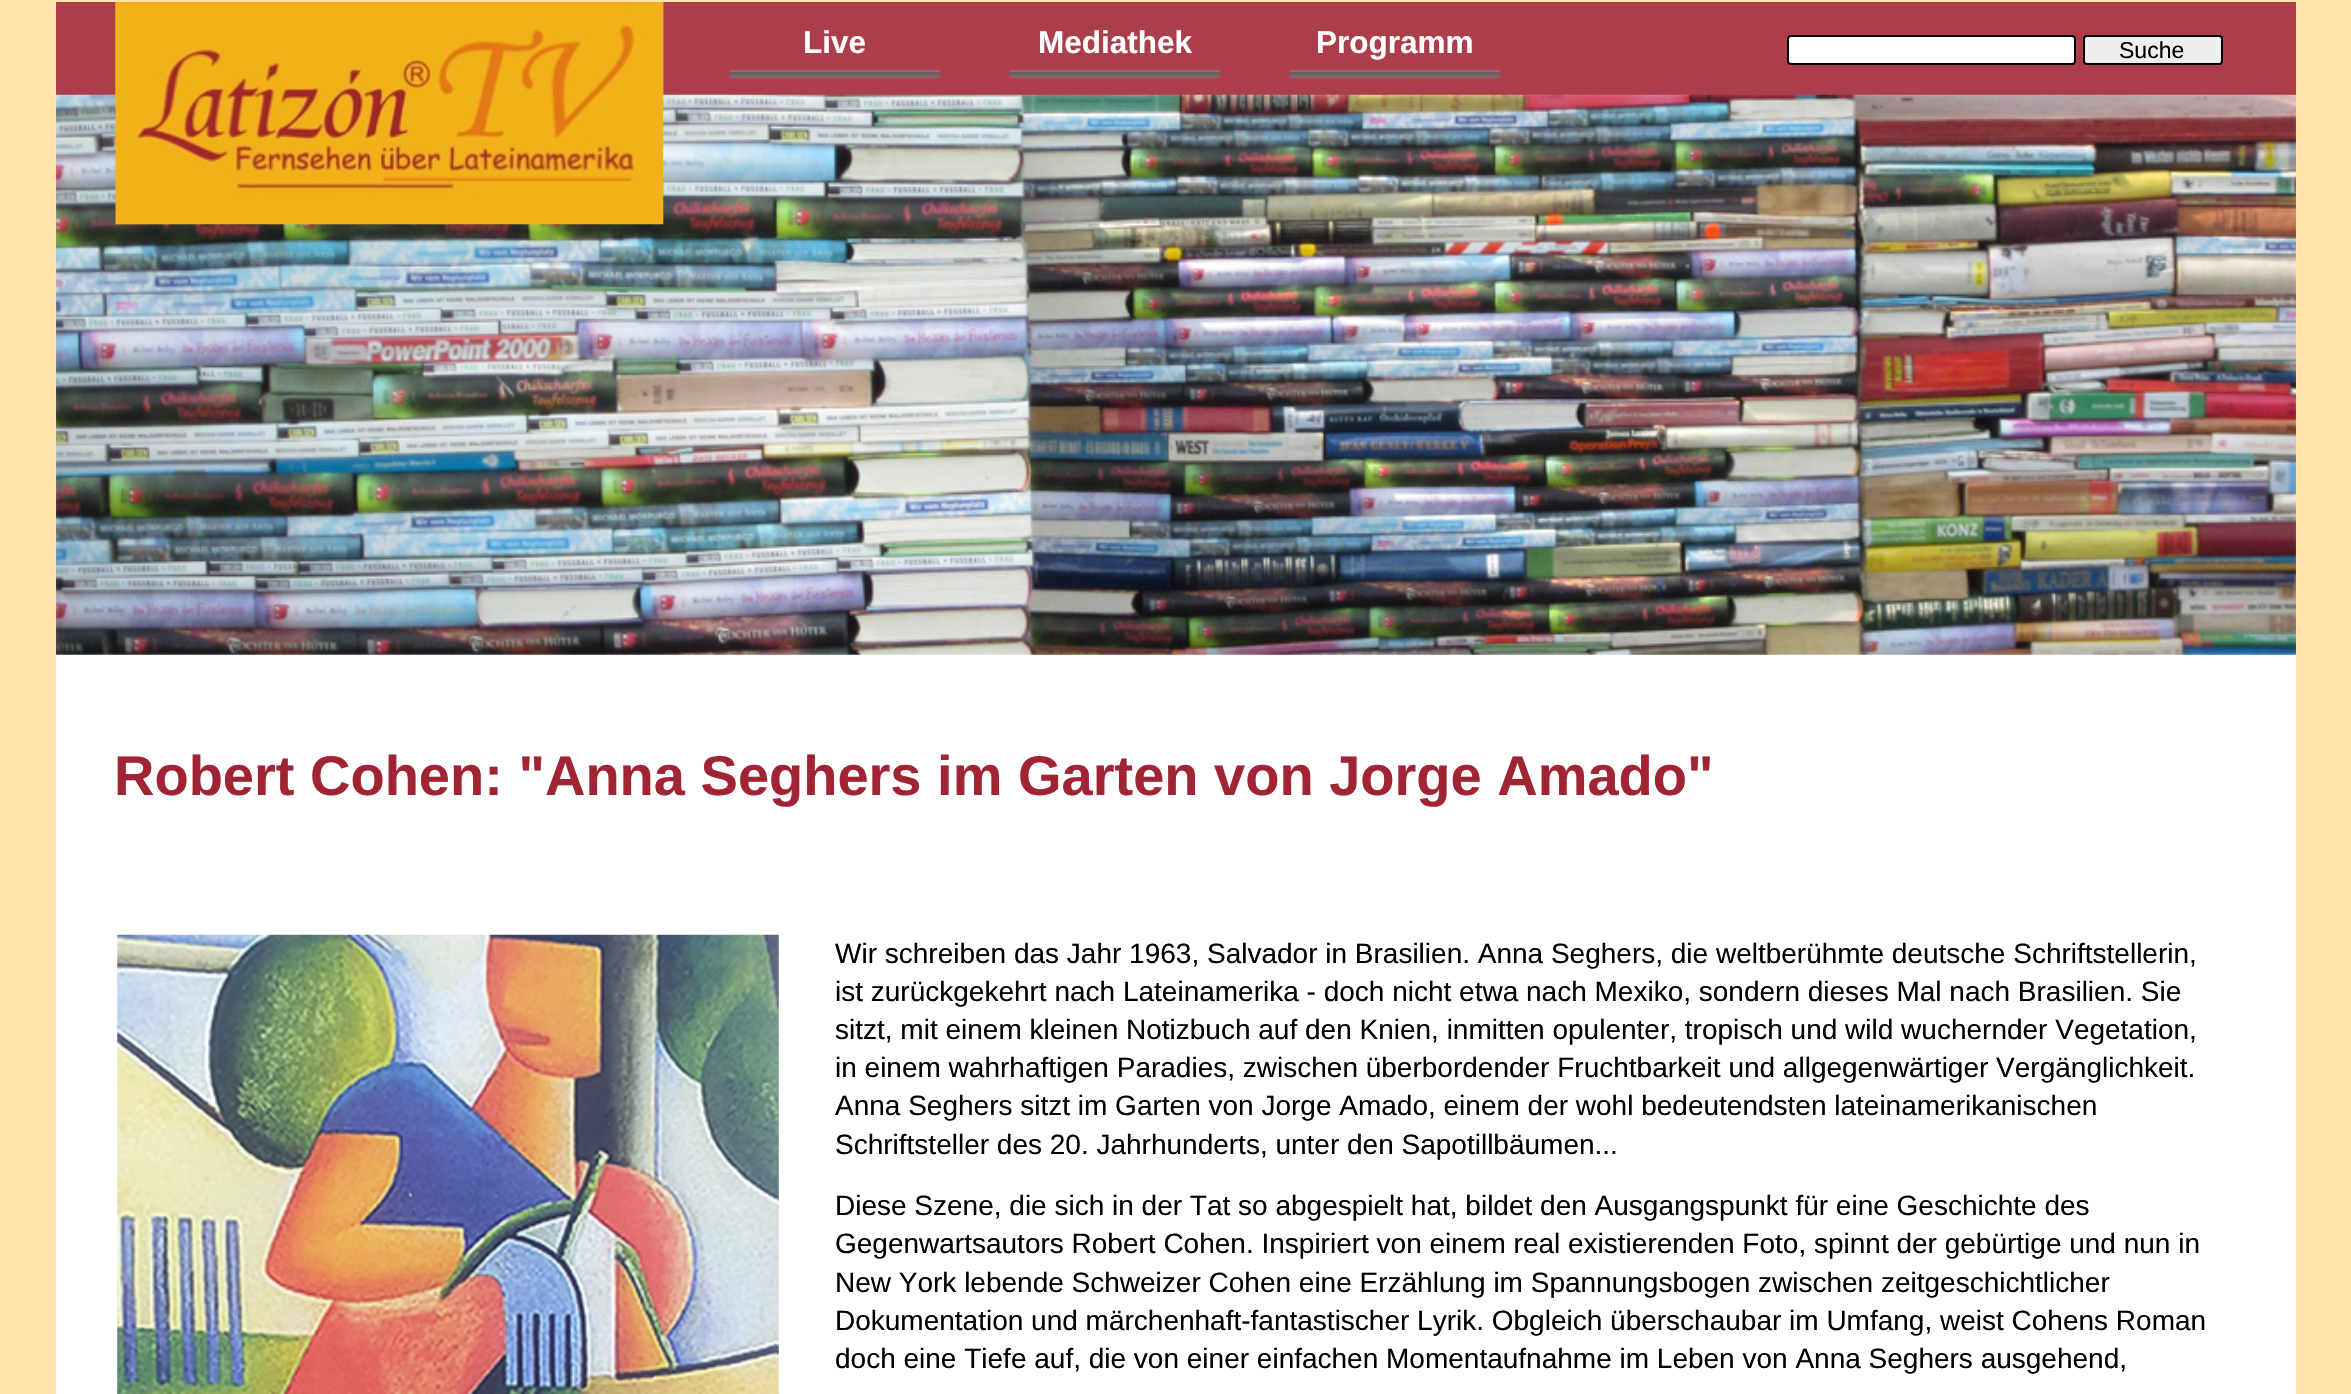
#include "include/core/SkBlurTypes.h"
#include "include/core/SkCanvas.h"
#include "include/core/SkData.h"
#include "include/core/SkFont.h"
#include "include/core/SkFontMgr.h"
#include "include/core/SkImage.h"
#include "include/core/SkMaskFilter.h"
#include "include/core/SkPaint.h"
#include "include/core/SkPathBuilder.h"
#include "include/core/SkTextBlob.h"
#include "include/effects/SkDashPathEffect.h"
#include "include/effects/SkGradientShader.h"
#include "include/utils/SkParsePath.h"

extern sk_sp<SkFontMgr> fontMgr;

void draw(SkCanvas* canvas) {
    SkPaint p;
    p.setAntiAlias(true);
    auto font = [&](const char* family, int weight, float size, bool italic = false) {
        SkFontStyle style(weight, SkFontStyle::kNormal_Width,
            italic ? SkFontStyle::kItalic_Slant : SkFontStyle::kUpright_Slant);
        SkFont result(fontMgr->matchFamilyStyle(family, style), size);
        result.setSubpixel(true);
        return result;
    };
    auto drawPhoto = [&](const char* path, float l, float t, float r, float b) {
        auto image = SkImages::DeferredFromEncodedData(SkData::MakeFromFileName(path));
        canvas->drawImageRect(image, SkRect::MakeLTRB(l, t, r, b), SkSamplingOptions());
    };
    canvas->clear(0xFFFFE4AD);
    p.setColor(0xFFFFFFFF);
    canvas->drawRect(SkRect::MakeLTRB(56, 654, 2296, 1394), p);
    p.setColor(0xFFAC3E4C);
    canvas->drawRect(SkRect::MakeLTRB(56, 2, 2296, 95), p);
    drawPhoto("media/1.png", 115, 2, 664, 95);
    drawPhoto("media/4.png", 56, 94, 2296, 655);
    drawPhoto("media/2.png", 115, 2, 664, 225);
    drawPhoto("media/3.png", 729, 70, 940, 79);
    auto font1 = font("Liberation Sans", 700, 31.5f);
    p.setColor(0xFFFFFFFF);
    canvas->drawString("Live", 803, 53, font1, p);
    drawPhoto("media/3.png", 1009, 70, 1220, 79);
    canvas->drawString("Mediathek", 1038, 53, font1, p);
    drawPhoto("media/3.png", 1289, 70, 1500, 79);
    canvas->drawString("Programm", 1316, 53, font1, p);
    canvas->drawRoundRect(SkRect::MakeLTRB(1788, 36, 2075, 64), 3, 3, p);
    p.setStyle(SkPaint::kStroke_Style);
    p.setStrokeWidth(2);
    p.setColor(0xFF000000);
    canvas->drawRoundRect(SkRect::MakeLTRB(1788, 36, 2075, 64), 3, 3, p);
    p.setStyle(SkPaint::kFill_Style);
    p.setColor(0xFFEFEFEF);
    canvas->drawRoundRect(SkRect::MakeLTRB(2084, 36, 2222, 64), 3, 3, p);
    p.setStyle(SkPaint::kStroke_Style);
    p.setColor(0xFF000000);
    canvas->drawRoundRect(SkRect::MakeLTRB(2084, 36, 2222, 64), 3, 3, p);
    auto font2 = font("Liberation Sans", 400, 23);
    p.setStyle(SkPaint::kFill_Style);
    canvas->drawString("Suche", 2119, 58, font2, p);
    auto font3 = font("Liberation Sans", 700, 56);
    p.setColor(0xFFA12434);
    canvas->drawString("Robert Cohen: \"Anna Seghers im Garten von Jorge Amado\"", 114, 795, font3, p);
    drawPhoto("media/5.png", 117, 934, 779, 1394);
    auto font4 = font("Liberation Sans", 400, 28);
    p.setColor(0xFF000000);
    {
        const struct { const char* s; float x, y; } items[] = {
            {"Wir schreiben das Jahr 1963, Salvador in Brasilien. Anna Seghers, die weltberühmte deutsche Schriftstellerin,", 835, 963},
            {"ist zurückgekehrt nach Lateinamerika - doch nicht etwa nach Mexiko, sondern dieses Mal nach Brasilien. Sie", 835, 1001},
            {"sitzt, mit einem kleinen Notizbuch auf den Knien, inmitten opulenter, tropisch und wild wuchernder Vegetation,", 835, 1039},
            {"in einem wahrhaftigen Paradies, zwischen überbordender Fruchtbarkeit und allgegenwärtiger Vergänglichkeit.", 835, 1077},
            {"Anna Seghers sitzt im Garten von Jorge Amado, einem der wohl bedeutendsten lateinamerikanischen", 835, 1115},
            {"Schriftsteller des 20. Jahrhunderts, unter den Sapotillbäumen...", 835, 1154},
            {"Diese Szene, die sich in der Tat so abgespielt hat, bildet den Ausgangspunkt für eine Geschichte des", 835, 1215},
            {"Gegenwartsautors Robert Cohen. Inspiriert von einem real existierenden Foto, spinnt der gebürtige und nun in", 835, 1253},
            {"New York lebende Schweizer Cohen eine Erzählung im Spannungsbogen zwischen zeitgeschichtlicher", 835, 1292},
            {"Dokumentation und märchenhaft-fantastischer Lyrik. Obgleich überschaubar im Umfang, weist Cohens Roman", 835, 1330},
            {"doch eine Tiefe auf, die von einer einfachen Momentaufnahme im Leben von Anna Seghers ausgehend,", 835, 1368},
        };
        for (auto [s, x, y] : items) {
            canvas->drawString(s, x, y, font4, p);
        }
    }
}
